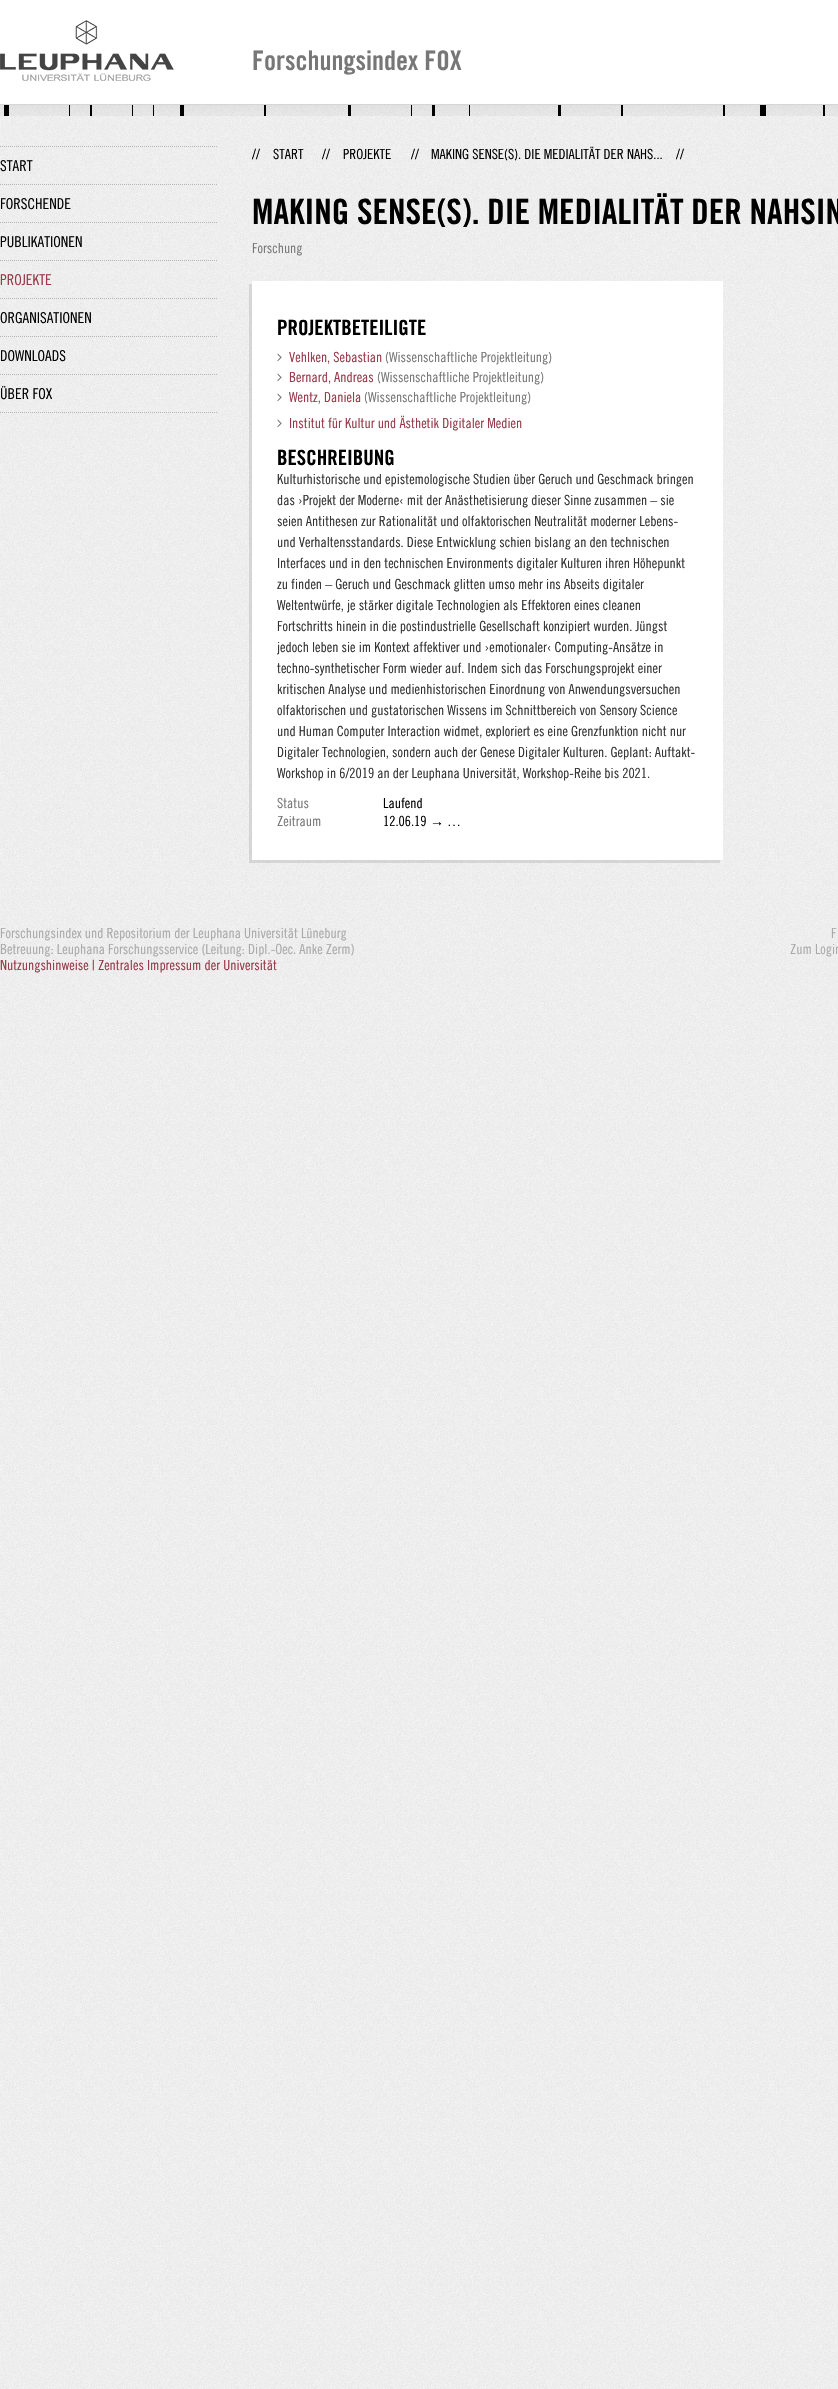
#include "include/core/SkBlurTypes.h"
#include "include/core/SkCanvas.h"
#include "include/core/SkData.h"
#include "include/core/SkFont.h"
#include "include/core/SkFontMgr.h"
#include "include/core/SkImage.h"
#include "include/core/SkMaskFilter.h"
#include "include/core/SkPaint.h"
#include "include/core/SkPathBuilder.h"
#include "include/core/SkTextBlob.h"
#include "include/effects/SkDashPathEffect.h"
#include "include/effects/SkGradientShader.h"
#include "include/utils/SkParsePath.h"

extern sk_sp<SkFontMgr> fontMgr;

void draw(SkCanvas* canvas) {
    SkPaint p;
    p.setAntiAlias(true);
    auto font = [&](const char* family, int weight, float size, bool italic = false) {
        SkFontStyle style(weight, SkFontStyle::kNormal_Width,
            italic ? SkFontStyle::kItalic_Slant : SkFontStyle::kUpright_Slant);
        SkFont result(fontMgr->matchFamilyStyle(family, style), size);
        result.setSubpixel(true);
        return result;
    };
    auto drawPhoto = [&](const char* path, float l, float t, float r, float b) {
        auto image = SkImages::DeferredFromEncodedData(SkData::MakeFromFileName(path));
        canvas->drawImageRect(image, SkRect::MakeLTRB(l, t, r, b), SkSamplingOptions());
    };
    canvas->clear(0xFFFFFFFF);
    drawPhoto("media/1.png", 0, 116, 838, 2389);
    p.setColor(0xFFD6D6D6);
    canvas->drawRect(SkRect::MakeLTRB(0, 104, 838, 105), p);
    drawPhoto("media/2.png", 0, 20, 174, 81);
    auto font1 = font("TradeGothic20", 700, 27);
    p.setColor(0xFF777777);
    canvas->drawString("Forschungsindex FOX", 252, 70, font1, p);
    drawPhoto("media/3.png", 0, 105, 838, 116);
    p.setStyle(SkPaint::kStroke_Style);
    p.setStrokeWidth(1);
    p.setColor(0xFFB5B5B5);
    p.setPathEffect(SkDashPathEffect::Make({{1, 1}}, 0));
    canvas->drawPath(SkPathBuilder().moveTo(0, 412.5f).lineTo(217, 412.5f).detach(), p);
    p.setPathEffect(nullptr);
    p.setPathEffect(SkDashPathEffect::Make({{1, 1}}, 0));
    canvas->drawPath(SkPathBuilder().moveTo(0, 146.5f).lineTo(217, 146.5f).detach(), p);
    p.setPathEffect(nullptr);
    auto font2 = font("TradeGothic", 400, 15);
    p.setStyle(SkPaint::kFill_Style);
    p.setColor(0xFF000000);
    canvas->drawString("START", 0, 171, font2, p);
    p.setStyle(SkPaint::kStroke_Style);
    p.setColor(0xFFB5B5B5);
    p.setPathEffect(SkDashPathEffect::Make({{1, 1}}, 0));
    canvas->drawPath(SkPathBuilder().moveTo(0, 184.5f).lineTo(217, 184.5f).detach(), p);
    p.setPathEffect(nullptr);
    p.setStyle(SkPaint::kFill_Style);
    p.setColor(0xFF000000);
    canvas->drawString("FORSCHENDE", 0, 209, font2, p);
    p.setStyle(SkPaint::kStroke_Style);
    p.setColor(0xFFB5B5B5);
    p.setPathEffect(SkDashPathEffect::Make({{1, 1}}, 0));
    canvas->drawPath(SkPathBuilder().moveTo(0, 222.5f).lineTo(217, 222.5f).detach(), p);
    p.setPathEffect(nullptr);
    p.setStyle(SkPaint::kFill_Style);
    p.setColor(0xFF000000);
    canvas->drawString("PUBLIKATIONEN", 0, 247, font2, p);
    p.setStyle(SkPaint::kStroke_Style);
    p.setColor(0xFFB5B5B5);
    p.setPathEffect(SkDashPathEffect::Make({{1, 1}}, 0));
    canvas->drawPath(SkPathBuilder().moveTo(0, 260.5f).lineTo(217, 260.5f).detach(), p);
    p.setPathEffect(nullptr);
    p.setStyle(SkPaint::kFill_Style);
    p.setColor(0xFF973948);
    canvas->drawString("PROJEKTE", 0, 285, font2, p);
    p.setStyle(SkPaint::kStroke_Style);
    p.setColor(0xFFB5B5B5);
    p.setPathEffect(SkDashPathEffect::Make({{1, 1}}, 0));
    canvas->drawPath(SkPathBuilder().moveTo(0, 298.5f).lineTo(217, 298.5f).detach(), p);
    p.setPathEffect(nullptr);
    p.setStyle(SkPaint::kFill_Style);
    p.setColor(0xFF000000);
    canvas->drawString("ORGANISATIONEN", 0, 323, font2, p);
    p.setStyle(SkPaint::kStroke_Style);
    p.setColor(0xFFB5B5B5);
    p.setPathEffect(SkDashPathEffect::Make({{1, 1}}, 0));
    canvas->drawPath(SkPathBuilder().moveTo(0, 336.5f).lineTo(217, 336.5f).detach(), p);
    p.setPathEffect(nullptr);
    p.setStyle(SkPaint::kFill_Style);
    p.setColor(0xFF000000);
    canvas->drawString("DOWNLOADS", 0, 361, font2, p);
    p.setStyle(SkPaint::kStroke_Style);
    p.setColor(0xFFB5B5B5);
    p.setPathEffect(SkDashPathEffect::Make({{1, 1}}, 0));
    canvas->drawPath(SkPathBuilder().moveTo(0, 374.5f).lineTo(217, 374.5f).detach(), p);
    p.setPathEffect(nullptr);
    p.setStyle(SkPaint::kFill_Style);
    p.setColor(0xFF000000);
    canvas->drawString("ÜBER FOX", 0, 399, font2, p);
    auto font3 = font("TradeGothic", 400, 14);
    {
        const struct { const char* s; float x, y; } items[] = {
            {"//", 252, 159},
            {"START", 273, 159},
            {"//", 322, 159},
            {"PROJEKTE", 343, 159},
            {"//", 411, 159},
            {"MAKING SENSE(S). DIE MEDIALITÄT DER NAHS...", 431, 159},
            {"//", 676, 159},
        };
        for (auto [s, x, y] : items) {
            canvas->drawString(s, x, y, font3, p);
        }
    }
    auto font4 = font("TradeGothic20", 700, 35);
    canvas->drawString("MAKING SENSE(S). DIE MEDIALITÄT DER NAHSIN", 252, 224, font4, p);
    p.setColor(0xFF777777);
    canvas->drawString("Forschung", 252, 253, font3, p);
    p.setColor(0x1A000000);
    canvas->drawPath(SkPathBuilder().moveTo(249, 284).lineTo(249, 863).lineTo(720, 863).lineTo(720, 860).lineTo(252, 860).lineTo(252, 284).close().detach(), p);
    p.setColor(0xFFFFFFFF);
    canvas->drawRect(SkRect::MakeLTRB(252, 281, 723, 860), p);
    auto font5 = font("TradeGothic20", 700, 21);
    p.setColor(0xFF000000);
    canvas->drawString("PROJEKTBETEILIGTE", 277, 335, font5, p);
    drawPhoto("media/4.png", 277, 353, 282, 362);
    p.setColor(0xFF973948);
    canvas->drawString("Vehlken, Sebastian", 289, 362, font3, p);
    p.setColor(0xFF777777);
    canvas->drawString("(Wissenschaftliche Projektleitung)", 385, 362, font3, p);
    drawPhoto("media/4.png", 277, 373, 282, 382);
    p.setColor(0xFF973948);
    canvas->drawString("Bernard, Andreas", 289, 382, font3, p);
    p.setColor(0xFF777777);
    canvas->drawString("(Wissenschaftliche Projektleitung)", 377, 382, font3, p);
    drawPhoto("media/4.png", 277, 393, 282, 402);
    p.setColor(0xFF973948);
    canvas->drawString("Wentz, Daniela", 289, 402, font3, p);
    p.setColor(0xFF777777);
    canvas->drawString("(Wissenschaftliche Projektleitung)", 364, 402, font3, p);
    drawPhoto("media/4.png", 277, 419, 282, 428);
    p.setColor(0xFF973948);
    canvas->drawString("Institut für Kultur und Ästhetik Digitaler Medien", 289, 428, font3, p);
    p.setColor(0xFF000000);
    canvas->drawString("BESCHREIBUNG", 277, 465, font5, p);
    p.setColor(0xFF333333);
    {
        const struct { const char* s; float x, y; } items[] = {
            {"Kulturhistorische und epistemologische Studien über Geruch und Geschmack bringen", 277, 484},
            {"das ›Projekt der Moderne‹ mit der Anästhetisierung dieser Sinne zusammen – sie", 277, 505},
            {"seien Antithesen zur Rationalität und olfaktorischen Neutralität moderner Lebens-", 277, 526},
            {"und Verhaltensstandards. Diese Entwicklung schien bislang an den technischen", 277, 547},
            {"Interfaces und in den technischen Environments digitaler Kulturen ihren Höhepunkt", 277, 568},
            {"zu finden – Geruch und Geschmack glitten umso mehr ins Abseits digitaler", 277, 589},
            {"Weltentwürfe, je stärker digitale Technologien als Effektoren eines cleanen", 277, 610},
            {"Fortschritts hinein in die postindustrielle Gesellschaft konzipiert wurden. Jüngst", 277, 631},
            {"jedoch leben sie im Kontext affektiver und ›emotionaler‹ Computing-Ansätze in", 277, 652},
            {"techno-synthetischer Form wieder auf. Indem sich das Forschungsprojekt einer", 277, 673},
            {"kritischen Analyse und medienhistorischen Einordnung von Anwendungsversuchen", 277, 694},
            {"olfaktorischen und gustatorischen Wissens im Schnittbereich von Sensory Science", 277, 715},
            {"und Human Computer Interaction widmet, exploriert es eine Grenzfunktion nicht nur", 277, 736},
            {"Digitaler Technologien, sondern auch der Genese Digitaler Kulturen. Geplant: Auftakt-", 277, 757},
            {"Workshop in 6/2019 an der Leuphana Universität, Workshop-Reihe bis 2021.", 277, 778},
        };
        for (auto [s, x, y] : items) {
            canvas->drawString(s, x, y, font3, p);
        }
    }
    p.setColor(0xFF777777);
    canvas->drawString("Status", 277, 808, font3, p);
    p.setColor(0xFF000000);
    canvas->drawString("Laufend", 383, 808, font3, p);
    p.setColor(0xFF777777);
    canvas->drawString("Zeitraum", 277, 826, font3, p);
    p.setColor(0xFF000000);
    canvas->drawString("12.06.19", 383, 826, font3, p);
    auto font6 = font("Liberation Sans", 400, 14);
    canvas->drawString("→", 430, 826, font6, p);
    canvas->drawString("…", 447, 826, font3, p);
    p.setColor(0xFFAAAAAA);
    canvas->drawString("Forschungsindex und Repositorium der Leuphana Universität Lüneburg", 0, 938, font3, p);
    canvas->drawString("Betreuung: Leuphana Forschungsservice (Leitung: Dipl.-Oec. Anke Zerm)", 0, 954, font3, p);
    p.setColor(0xFF973948);
    canvas->drawString("Nutzungshinweise | Zentrales Impressum der Universität", 0, 970, font3, p);
    p.setColor(0xFFAAAAAA);
    canvas->drawString("F", 831, 938, font3, p);
    canvas->drawString("Zum Login", 790, 954, font3, p);
}
